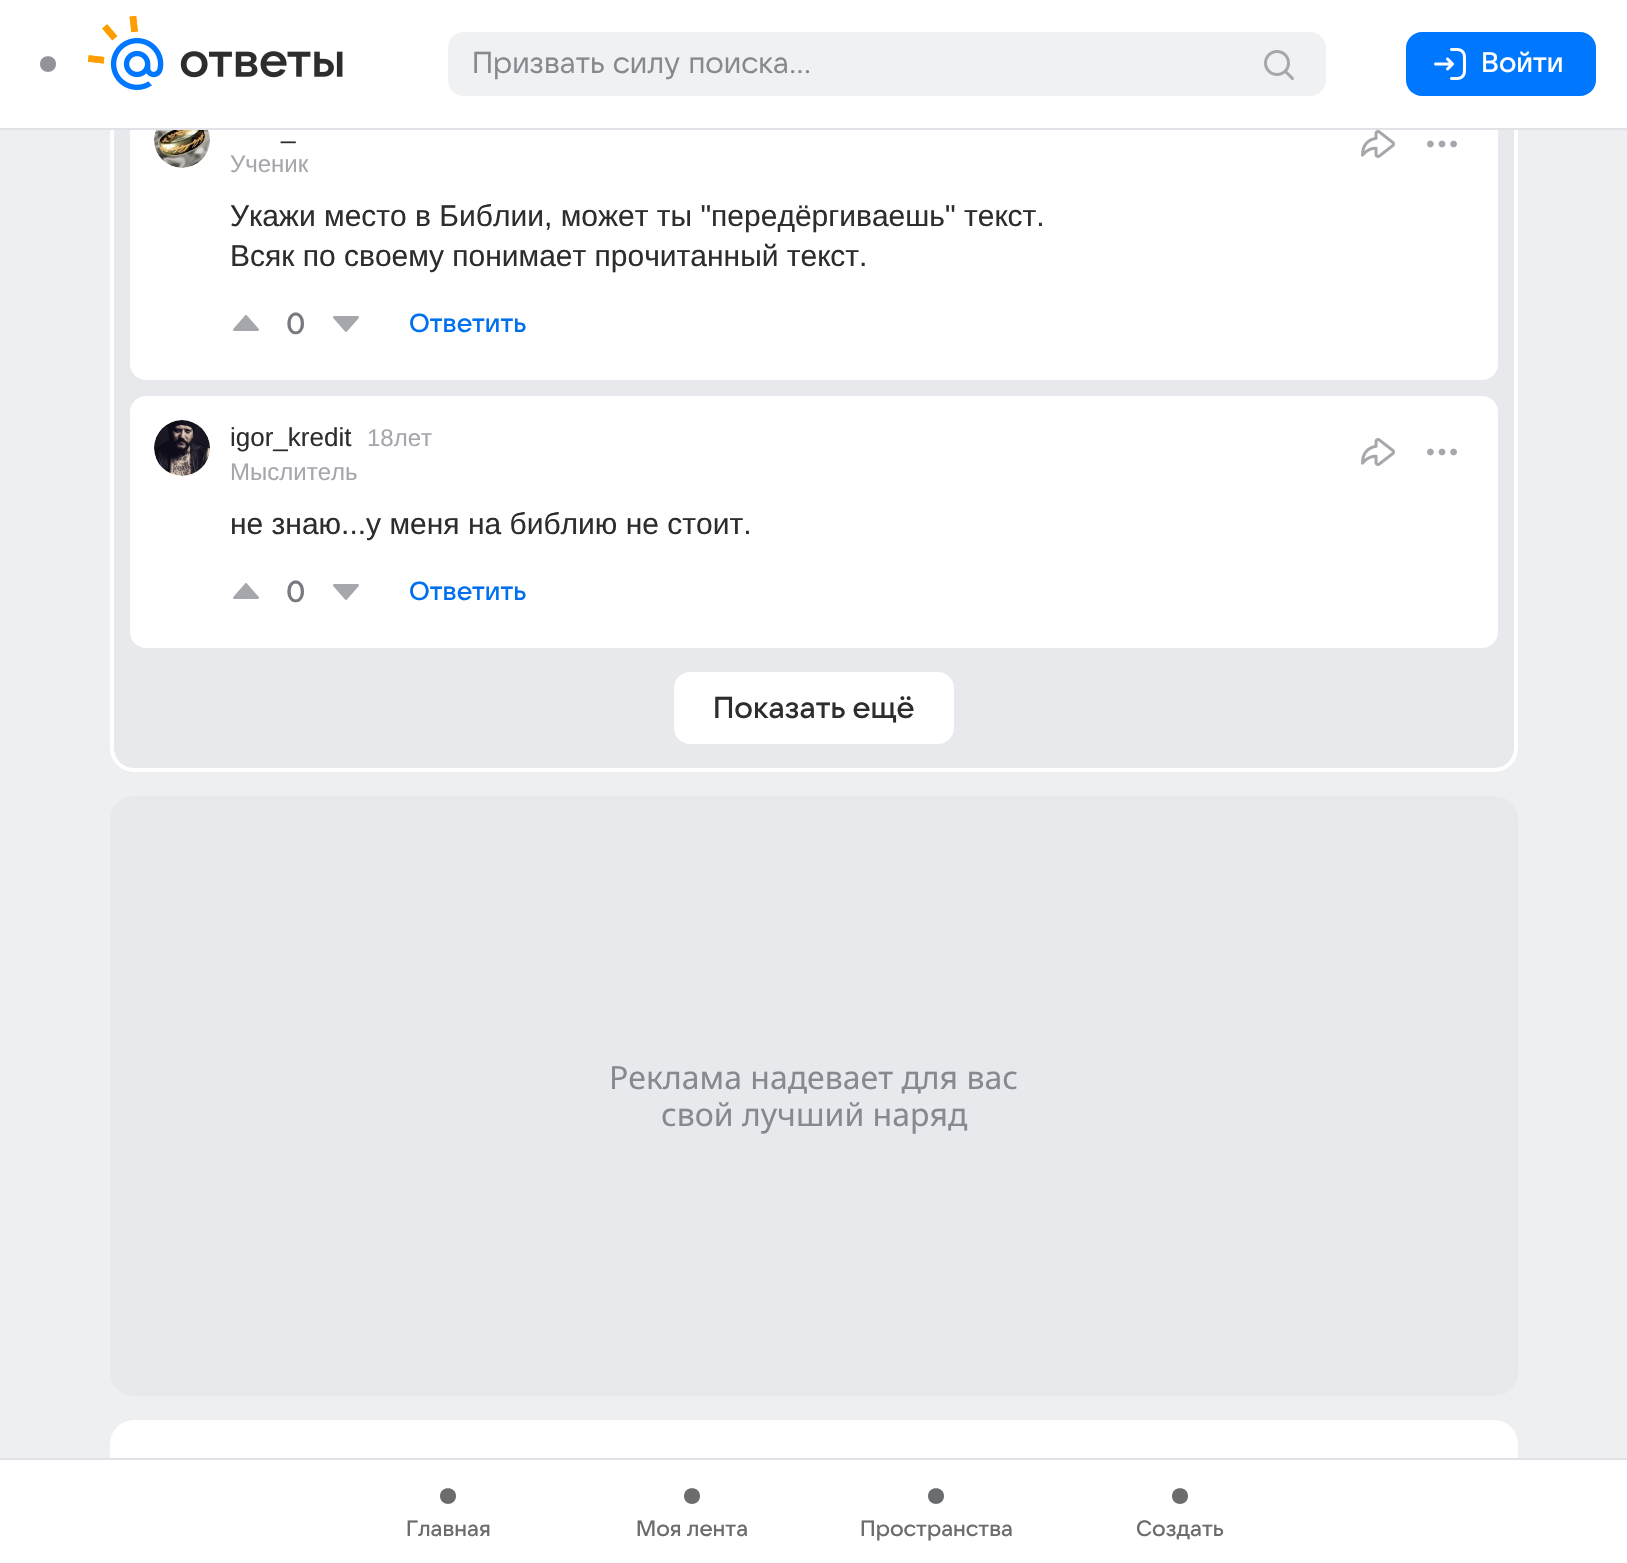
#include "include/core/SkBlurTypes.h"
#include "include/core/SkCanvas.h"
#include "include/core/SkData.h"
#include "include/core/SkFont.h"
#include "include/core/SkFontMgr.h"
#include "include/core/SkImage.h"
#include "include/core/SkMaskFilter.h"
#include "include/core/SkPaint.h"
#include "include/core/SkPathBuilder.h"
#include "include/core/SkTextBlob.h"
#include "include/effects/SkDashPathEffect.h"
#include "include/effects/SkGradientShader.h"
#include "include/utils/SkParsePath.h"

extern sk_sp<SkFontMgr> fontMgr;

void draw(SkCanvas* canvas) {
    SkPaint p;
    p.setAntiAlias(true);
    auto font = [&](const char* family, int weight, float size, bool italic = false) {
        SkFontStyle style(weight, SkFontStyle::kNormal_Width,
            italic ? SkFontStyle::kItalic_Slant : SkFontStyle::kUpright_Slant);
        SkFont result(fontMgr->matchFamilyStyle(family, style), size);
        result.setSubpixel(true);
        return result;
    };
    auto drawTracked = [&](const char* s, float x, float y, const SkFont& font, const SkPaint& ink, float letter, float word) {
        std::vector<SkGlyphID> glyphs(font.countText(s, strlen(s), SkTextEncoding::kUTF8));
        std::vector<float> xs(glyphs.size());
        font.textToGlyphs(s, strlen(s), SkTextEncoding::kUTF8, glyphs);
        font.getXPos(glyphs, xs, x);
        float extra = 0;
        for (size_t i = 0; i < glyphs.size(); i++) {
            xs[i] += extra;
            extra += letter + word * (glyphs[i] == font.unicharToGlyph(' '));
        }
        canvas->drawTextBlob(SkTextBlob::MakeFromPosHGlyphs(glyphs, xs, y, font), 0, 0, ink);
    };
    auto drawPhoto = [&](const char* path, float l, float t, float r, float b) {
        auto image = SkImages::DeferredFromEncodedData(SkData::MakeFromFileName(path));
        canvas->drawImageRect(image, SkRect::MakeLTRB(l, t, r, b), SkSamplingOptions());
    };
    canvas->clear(0xFFEEEFF1);
    p.setColor(0xFFFFFFFF);
    canvas->drawRoundRect(SkRect::MakeLTRB(110, -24, 1518, 772), 24, 24, p);
    p.setColor(0xFFE7E9EC);
    canvas->drawRoundRect(SkRect::MakeLTRB(114, -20, 1514, 768), 20, 20, p);
    p.setColor(0xFFFFFFFF);
    canvas->drawRoundRect(SkRect::MakeLTRB(130, 88, 1498, 380), 16, 16, p);
    p.setColor(0xFFF0F1F3);
    canvas->drawCircle(182, 140, 28, p);
    p.setColor(0xFFFFFFFF);
    canvas->drawRect(SkRect::MakeLTRB(0, 0, 1627, 128), p);
    p.setColor(0xFFE0E2E8);
    canvas->drawRect(SkRect::MakeLTRB(0, 128, 1627, 130), p);
    p.setColor(0xFF919399);
    canvas->drawPath(SkPathBuilder().moveTo(56, 64).cubicTo(56, 74.5f, 40, 74.5f, 40, 64).cubicTo(40, 53.5f, 56, 53.5f, 56, 64).detach(), p);
    drawPhoto("media/1.png", 88, 16, 343, 90);
    p.setColor(0xFFF0F1F3);
    canvas->drawRoundRect(SkRect::MakeLTRB(448, 32, 1326, 96), 16, 16, p);
    auto font1 = font("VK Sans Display", 400, 30);
    p.setColor(0xFF87898F);
    drawTracked("Призвать силу поиска...", 472, 73, font1, p, 0, 1);
    drawPhoto("media/2.png", 1264, 50, 1294, 80);
    p.setColor(0xFF0077FF);
    canvas->drawRoundRect(SkRect::MakeLTRB(1406, 32, 1596, 96), 16, 16, p);
    drawPhoto("media/3.png", 1434, 48, 1466, 80);
    auto font2 = font("VK Sans Display", 500, 28);
    p.setColor(0xFFFFFFFF);
    canvas->drawString("Войти", 1481, 72, font2, p);
    drawPhoto("media/4.png", 154, 130, 210, 168);
    auto font3 = font("Liberation Sans", 400, 26);
    p.setColor(0xFF2C2D2E);
    canvas->drawString("_", 281, 138, font3, p);
    auto font4 = font("Liberation Sans", 400, 24);
    p.setColor(0xFFA5A7AD);
    canvas->drawString("Ученик", 230, 172, font4, p);
    drawPhoto("media/5.png", 1361, 130, 1395, 158);
    drawPhoto("media/6.png", 1427, 140, 1457, 148);
    auto font5 = font("Liberation Sans", 400, 30);
    p.setColor(0xFF2C2D2E);
    canvas->drawString("Укажи место в Библии, может ты \"передёргиваешь\" текст.", 230, 226, font5, p);
    canvas->drawString("Всяк по своему понимает прочитанный текст.", 230, 266, font5, p);
    drawPhoto("media/7.png", 233, 315, 259, 331);
    auto font6 = font("VK Sans Display", 500, 30);
    p.setColor(0xFF797A80);
    canvas->drawString("0", 286, 334, font6, p);
    drawPhoto("media/8.png", 333, 316, 359, 332);
    auto font7 = font("VK Sans Display", 500, 26);
    p.setColor(0xFF0070F0);
    canvas->drawString("Ответить", 409, 332, font7, p);
    p.setColor(0xFFFFFFFF);
    canvas->drawRoundRect(SkRect::MakeLTRB(130, 396, 1498, 648), 16, 16, p);
    p.setColor(0xFFF0F1F3);
    canvas->drawCircle(182, 448, 28, p);
    drawPhoto("media/9.png", 154, 420, 210, 476);
    p.setColor(0xFF2C2D2E);
    canvas->drawString("igor_kredit", 230, 446, font3, p);
    p.setColor(0xFFA5A7AD);
    canvas->drawString("Мыслитель", 230, 480, font4, p);
    canvas->drawString("18лет", 367, 446, font4, p);
    drawPhoto("media/5.png", 1361, 438, 1395, 466);
    drawPhoto("media/6.png", 1427, 448, 1457, 456);
    p.setColor(0xFF2C2D2E);
    canvas->drawString("не знаю...у меня на библию не стоит.", 230, 534, font5, p);
    drawPhoto("media/7.png", 233, 583, 259, 599);
    p.setColor(0xFF797A80);
    canvas->drawString("0", 286, 602, font6, p);
    drawPhoto("media/8.png", 333, 584, 359, 600);
    p.setColor(0xFF0070F0);
    canvas->drawString("Ответить", 409, 600, font7, p);
    p.setColor(0xFFFFFFFF);
    canvas->drawRoundRect(SkRect::MakeLTRB(674, 672, 954, 744), 16, 16, p);
    p.setColor(0xFF2C2D2E);
    canvas->drawString("Показать ещё", 713, 718, font6, p);
    p.setColor(0xFFE7E9ED);
    canvas->drawRoundRect(SkRect::MakeLTRB(110, 796, 1518, 1396), 24, 24, p);
    auto font8 = font("Noto Sans", 400, 32);
    p.setColor(0xFF87898F);
    canvas->drawString("Реклама надевает для вас", 609, 1089, font8, p);
    canvas->drawString("свой лучший наряд", 661, 1126, font8, p);
    p.setColor(0xFFFFFFFF);
    canvas->drawRoundRect(SkRect::MakeLTRB(110, 1420, 1518, 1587), 24, 24, p);
    canvas->drawRect(SkRect::MakeLTRB(0, 1460, 1627, 1563), p);
    p.setColor(0xFFE0E2E8);
    canvas->drawRect(SkRect::MakeLTRB(0, 1458, 1627, 1460), p);
    p.setColor(0xFF6B6C6D);
    canvas->drawPath(SkPathBuilder().moveTo(456, 1496).cubicTo(456, 1506.5f, 440, 1506.5f, 440, 1496).cubicTo(440, 1485.5f, 456, 1485.5f, 456, 1496).detach(), p);
    auto font9 = font("VK Sans Display", 500, 22);
    canvas->drawString("Главная", 406, 1536, font9, p);
    canvas->drawPath(SkPathBuilder().moveTo(700, 1496).cubicTo(700, 1506.5f, 684, 1506.5f, 684, 1496).cubicTo(684, 1485.5f, 700, 1485.5f, 700, 1496).detach(), p);
    canvas->drawString("Моя лента", 636, 1536, font9, p);
    canvas->drawPath(SkPathBuilder().moveTo(944, 1496).cubicTo(944, 1506.5f, 928, 1506.5f, 928, 1496).cubicTo(928, 1485.5f, 944, 1485.5f, 944, 1496).detach(), p);
    canvas->drawString("Пространства", 860, 1536, font9, p);
    canvas->drawPath(SkPathBuilder().moveTo(1188, 1496).cubicTo(1188, 1506.5f, 1172, 1506.5f, 1172, 1496).cubicTo(1172, 1485.5f, 1188, 1485.5f, 1188, 1496).detach(), p);
    canvas->drawString("Создать", 1136, 1536, font9, p);
}
